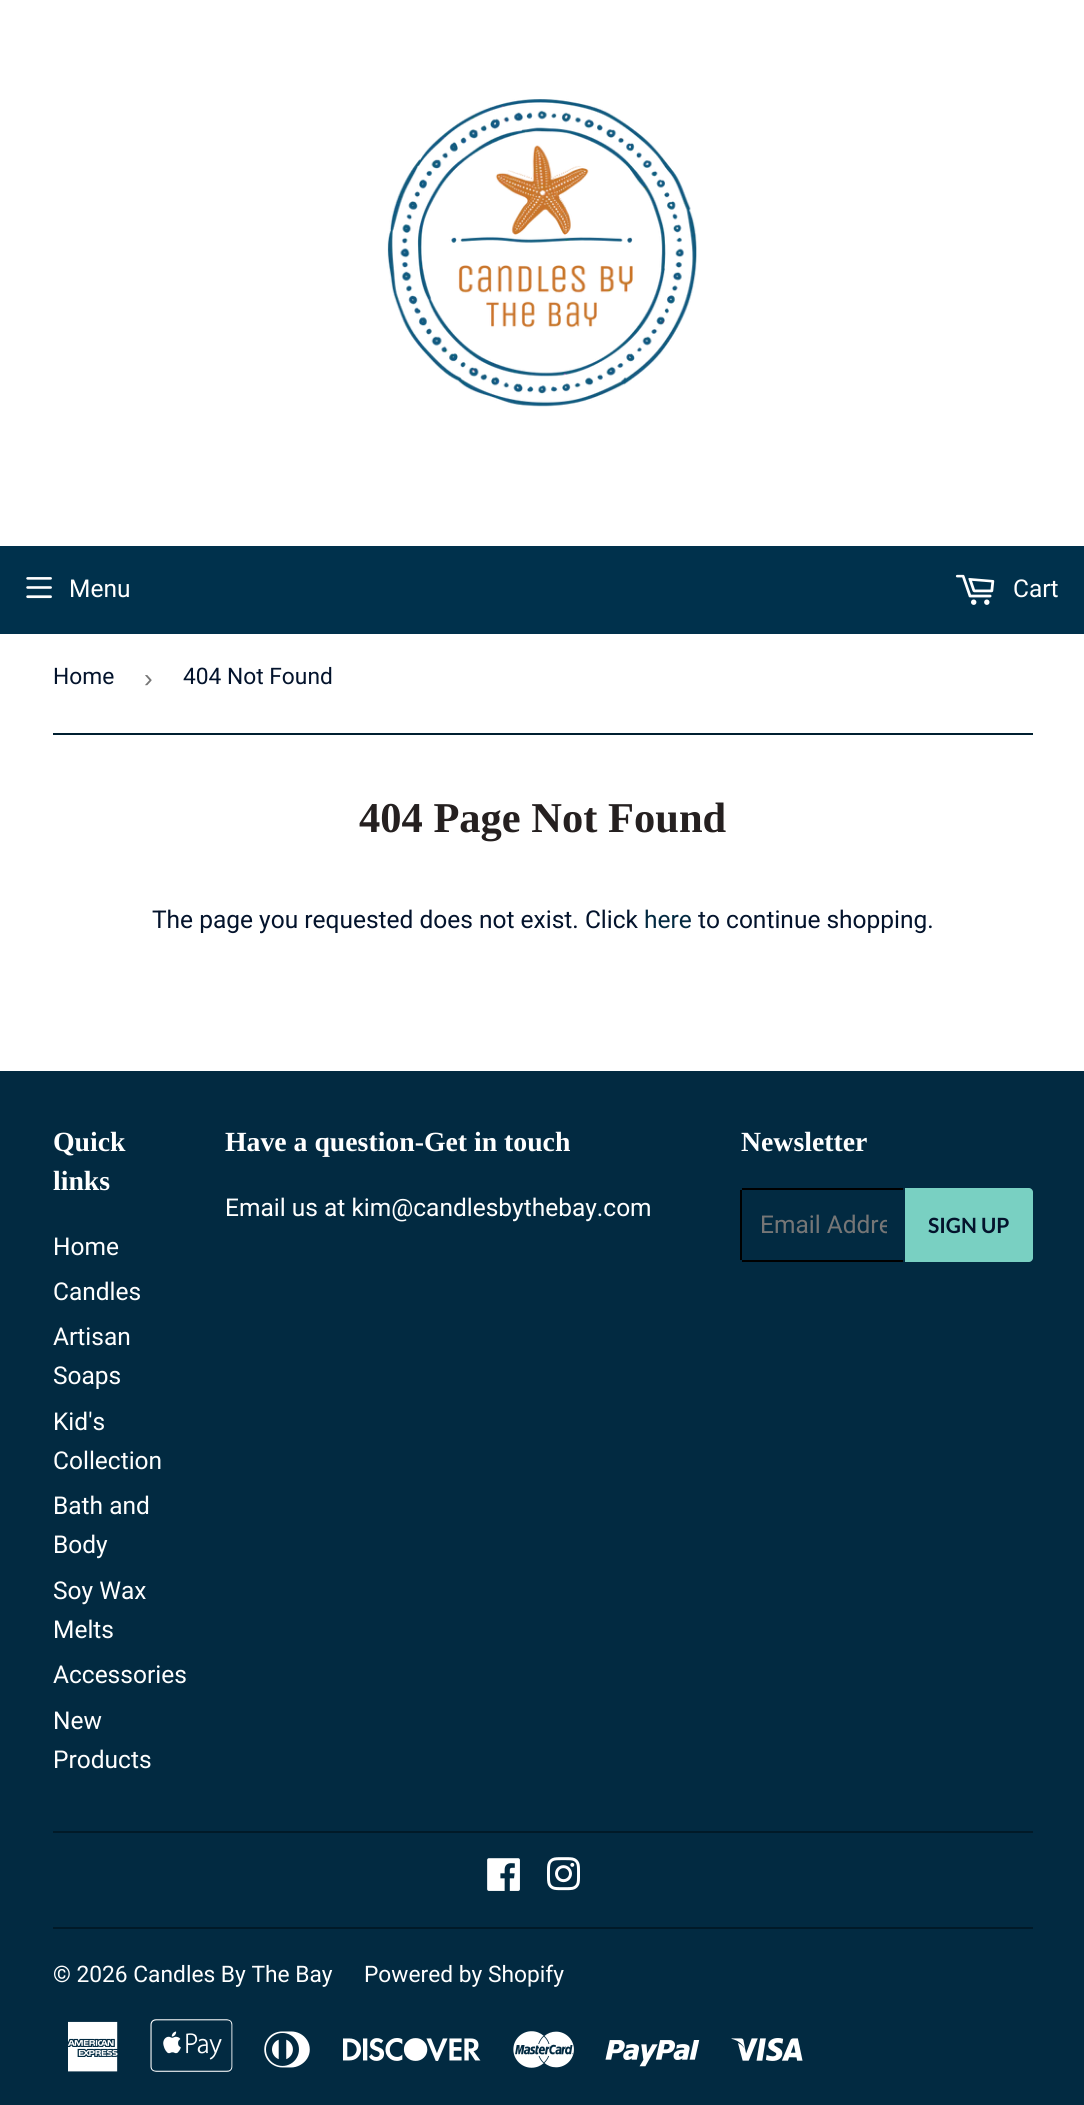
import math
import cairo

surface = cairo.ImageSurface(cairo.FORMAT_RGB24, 1084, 2105)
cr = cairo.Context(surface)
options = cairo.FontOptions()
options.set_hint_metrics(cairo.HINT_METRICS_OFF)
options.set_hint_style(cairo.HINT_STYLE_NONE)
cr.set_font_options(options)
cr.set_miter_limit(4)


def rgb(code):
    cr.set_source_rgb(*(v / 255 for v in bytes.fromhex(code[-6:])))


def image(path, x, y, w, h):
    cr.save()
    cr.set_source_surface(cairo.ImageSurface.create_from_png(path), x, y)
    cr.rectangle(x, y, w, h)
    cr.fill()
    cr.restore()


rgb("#ffffff")
cr.paint()
image("img/1.png", 387, 99, 310, 308)
rgb("#00314c")
cr.rectangle(0, 546, 1084, 88)
cr.fill()
image("img/2.png", 26, 577, 26, 22)
image("img/3.png", 955, 574, 40, 31)
for x, y, w, h, color in [
    (53, 733, 980, 2, "#001f30"),
    (0, 1071, 1084, 1034, "#022a41"),
    (742, 1188, 161, 2, "#000000"),
    (742, 1260, 161, 2, "#000000"),
    (740, 1190, 2, 70, "#000000"),
]:
    rgb(color)
    cr.rectangle(x, y, w, h)
    cr.fill()
rgb("#79d0c2")
cr.new_path()
cr.move_to(905, 1188)
cr.line_to(1029, 1188)
cr.curve_to(1031, 1188, 1033, 1190, 1033, 1192)
cr.line_to(1033, 1258)
cr.curve_to(1033, 1260, 1031, 1262, 1029, 1262)
cr.line_to(905, 1262)
cr.close_path()
cr.fill()
rgb("#011a28")
cr.rectangle(53, 1831, 980, 2)
cr.fill()
image("img/4.png", 487, 1858, 33, 33)
image("img/5.png", 547, 1857, 33, 34)
cr.rectangle(53, 1927, 980, 2)
cr.fill()
image("img/6.png", 68, 2021, 50, 51)
image("img/7.png", 150, 2019, 83, 53)
image("img/8.png", 264, 2031, 46, 37)
image("img/9.png", 343, 2038, 138, 23)
image("img/10.png", 513, 2031, 61, 37)
image("img/11.png", 605, 2040, 95, 27)
image("img/12.png", 731, 2038, 72, 23)
cr.select_font_face("Roboto")
cr.set_font_size(24.5)
rgb("#ffffff")
cr.move_to(69, 597)
cr.show_text("Menu")
cr.move_to(1013, 597)
cr.show_text("Cart")
cr.set_font_size(22.75)
rgb("#03132c")
cr.move_to(53, 684)
cr.show_text("Home")
cr.select_font_face("Liberation Sans")
cr.set_font_size(26)
rgb("#767676")
cr.move_to(144, 687)
cr.show_text("›")
cr.select_font_face("Roboto")
cr.set_font_size(22.75)
rgb("#03132c")
cr.move_to(183, 684)
cr.show_text("404 Not Found")
cr.select_font_face("Liberation Serif", cairo.FONT_SLANT_NORMAL, cairo.FONT_WEIGHT_BOLD)
cr.set_font_size(42.5)
rgb("#252020")
cr.move_to(359, 832)
cr.show_text("404 Page Not Found")
cr.select_font_face("Roboto")
cr.set_font_size(24.5)
rgb("#03132c")
cr.move_to(152, 928)
cr.show_text("The page you requested does not exist. Click")
rgb("#022a41")
cr.move_to(644, 928)
cr.show_text("here")
rgb("#03132c")
cr.move_to(698, 928)
cr.show_text("to continue shopping.")
cr.select_font_face("Liberation Serif", cairo.FONT_SLANT_NORMAL, cairo.FONT_WEIGHT_BOLD)
cr.set_font_size(27.75)
rgb("#ffffff")
cr.move_to(53, 1151)
cr.show_text("Quick")
cr.move_to(53, 1190)
cr.show_text("links")
cr.select_font_face("Roboto")
cr.set_font_size(24.5)
for x, y, s in [
    (53, 1255, "Home"),
    (53, 1300, "Candles"),
    (53, 1345, "Artisan"),
    (53, 1384, "Soaps"),
    (53, 1430, "Kid's"),
    (53, 1469, "Collection"),
    (53, 1514, "Bath and"),
    (53, 1553, "Body"),
    (53, 1599, "Soy Wax"),
    (53, 1638, "Melts"),
    (53, 1683, "Accessories"),
    (53, 1729, "New"),
    (53, 1768, "Products"),
]:
    cr.move_to(x, y)
    cr.show_text(s)
cr.select_font_face("Liberation Serif", cairo.FONT_SLANT_NORMAL, cairo.FONT_WEIGHT_BOLD)
cr.set_font_size(27.75)
cr.move_to(225, 1151)
cr.show_text("Have a question-Get in touch")
cr.select_font_face("Roboto")
cr.set_font_size(24.5)
cr.move_to(225, 1216)
cr.show_text("Email us at kim@candlesbythebay.com")
cr.select_font_face("Liberation Serif", cairo.FONT_SLANT_NORMAL, cairo.FONT_WEIGHT_BOLD)
cr.set_font_size(27.75)
cr.move_to(741, 1151)
cr.show_text("Newsletter")
cr.save()
cr.rectangle(760, 1211, 127, 28)
cr.clip()
cr.select_font_face("Roboto")
cr.set_font_size(24.5)
rgb("#767676")
cr.move_to(760, 1233)
cr.show_text("Email Addre")
cr.restore()
cr.select_font_face("Lato", cairo.FONT_SLANT_NORMAL, cairo.FONT_WEIGHT_BOLD)
cr.set_font_size(21)
rgb("#03132c")
cr.move_to(928, 1233)
cr.show_text("SIGN UP")
cr.select_font_face("Roboto")
cr.set_font_size(22.75)
rgb("#ffffff")
cr.move_to(53, 1982)
cr.show_text("© 2026 Candles By The Bay")
cr.move_to(364, 1982)
cr.show_text("Powered by Shopify")
surface.write_to_png("page.png")
